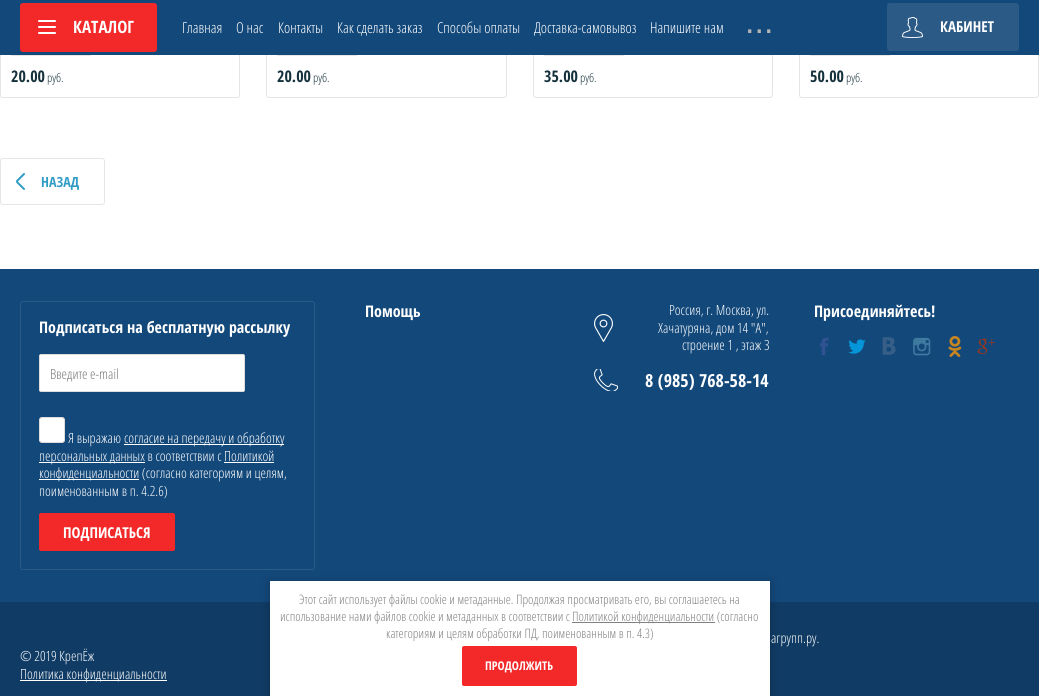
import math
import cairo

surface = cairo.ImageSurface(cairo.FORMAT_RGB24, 1039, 696)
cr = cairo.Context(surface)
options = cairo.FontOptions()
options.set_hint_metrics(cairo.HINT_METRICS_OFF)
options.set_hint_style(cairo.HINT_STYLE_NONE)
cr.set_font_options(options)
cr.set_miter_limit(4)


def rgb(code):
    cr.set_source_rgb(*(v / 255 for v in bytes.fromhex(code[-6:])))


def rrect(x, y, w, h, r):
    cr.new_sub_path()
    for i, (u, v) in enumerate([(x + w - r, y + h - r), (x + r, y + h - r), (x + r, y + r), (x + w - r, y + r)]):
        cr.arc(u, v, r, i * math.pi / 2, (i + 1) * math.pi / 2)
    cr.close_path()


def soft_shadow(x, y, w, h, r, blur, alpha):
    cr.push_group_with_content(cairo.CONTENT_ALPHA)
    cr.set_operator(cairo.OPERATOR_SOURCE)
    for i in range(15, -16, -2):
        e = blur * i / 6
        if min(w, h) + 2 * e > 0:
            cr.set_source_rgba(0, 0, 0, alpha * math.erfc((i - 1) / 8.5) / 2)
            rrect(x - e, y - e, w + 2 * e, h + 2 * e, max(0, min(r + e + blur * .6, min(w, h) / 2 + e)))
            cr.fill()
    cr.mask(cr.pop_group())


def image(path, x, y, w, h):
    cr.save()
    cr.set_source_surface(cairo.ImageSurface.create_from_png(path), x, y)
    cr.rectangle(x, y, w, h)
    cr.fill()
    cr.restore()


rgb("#ffffff")
cr.paint()
rrect(0.5, -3.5, 239, 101, 2.5)
rgb("#e5e5e5")
cr.set_line_width(1)
cr.stroke()
rrect(266.5, -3.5, 240, 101, 2.5)
cr.stroke()
rrect(533.5, -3.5, 239, 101, 2.5)
cr.stroke()
rrect(799.5, -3.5, 239, 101, 2.5)
cr.stroke()
rgb("#13487a")
cr.rectangle(0, 0, 1039, 55)
cr.fill()
rgb("#f32929")
rrect(20, 3, 137, 49, 3)
cr.fill()
image("img/1.png", 38, 20, 18, 14)
rgb("#2b5a87")
rrect(887, 3, 132, 48, 3)
cr.fill()
image("img/2.png", 902, 17, 21, 21)
for x, y, w, h, color in [
    (11, 55, 80, 1, "#e6e6e6"),
    (277, 55, 80, 1, "#e6e6e6"),
    (544, 55, 80, 1, "#e6e6e6"),
    (810, 55, 80, 1, "#e6e6e6"),
]:
    rgb(color)
    cr.rectangle(x, y, w, h)
    cr.fill()
image("img/3.png", 16, 173, 9, 17)
rrect(0.5, 158.5, 104, 46, 2.5)
cr.stroke()
rgb("#13487a")
cr.rectangle(0, 269, 1039, 333)
cr.fill()
rrect(20.5, 301.5, 294, 268, 2.5)
rgb("#2b5a87")
cr.stroke()
rgb("#ffffff")
rrect(39.5, 354.5, 205, 37, 1.5)
cr.fill_preserve()
rgb("#dddddd")
cr.stroke()
rgb("#ffffff")
rrect(39.5, 417.5, 25, 25, 2.5)
cr.fill_preserve()
rgb("#dddddd")
cr.stroke()
for x, y, w, h, color in [
    (124, 444, 160, 1, "#ffffff"),
    (39, 462, 106, 1, "#ffffff"),
    (224, 462, 50, 1, "#ffffff"),
    (39, 479, 100, 1, "#ffffff"),
]:
    rgb(color)
    cr.rectangle(x, y, w, h)
    cr.fill()
rgb("#f32929")
rrect(39, 513, 136, 38, 2)
cr.fill()
image("img/4.png", 594, 314, 19, 28)
image("img/5.png", 594, 369, 24, 22)
image("img/6.png", 820, 337, 9, 19)
image("img/7.png", 848, 339, 18, 15)
image("img/8.png", 882, 337, 14, 18)
image("img/9.png", 913, 337, 18, 19)
image("img/10.png", 948, 336, 14, 21)
image("img/11.png", 977, 338, 18, 17)
rgb("#103b64")
cr.rectangle(0, 602, 1039, 94)
cr.fill()
rgb("#ffffff")
cr.rectangle(20, 680, 147, 1)
cr.fill()
rgb("#000000")
soft_shadow(270, 582, 500, 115, 0, 5, 0.23)
rgb("#ffffff")
cr.rectangle(270, 581, 500, 115)
cr.fill()
rgb("#808080")
cr.rectangle(572, 622, 143, 1)
cr.fill()
rgb("#f32929")
rrect(462, 646, 115, 40, 2)
cr.fill()
cr.select_font_face("Open Sans Condensed", cairo.FONT_SLANT_NORMAL, cairo.FONT_WEIGHT_BOLD)
cr.set_font_size(17)
rgb("#ffffff")
cr.move_to(73, 33)
cr.show_text("КАТАЛОГ")
cr.select_font_face("Open Sans Light")
cr.set_font_size(15)
for x, y, s in [
    (182, 33, "Главная"),
    (236, 33, "О нас"),
    (278, 33, "Контакты"),
    (337, 33, "Как сделать заказ"),
    (437, 33, "Способы оплаты"),
    (534, 33, "Доставка-самовывоз"),
    (650, 33, "Напишите нам"),
]:
    cr.move_to(x, y)
    cr.show_text(s)
cr.select_font_face("Liberation Sans")
cr.set_font_size(34)
rgb("#b5b5b5")
cr.move_to(745, 33)
cr.show_text("...")
cr.select_font_face("Open Sans Condensed", cairo.FONT_SLANT_NORMAL, cairo.FONT_WEIGHT_BOLD)
cr.set_font_size(15)
rgb("#ffffff")
cr.move_to(940, 32)
cr.show_text("КАБИНЕТ")
cr.set_font_size(16)
rgb("#15313c")
cr.move_to(11, 82)
cr.show_text("20.00")
cr.select_font_face("Open Sans Light")
cr.set_font_size(12)
cr.move_to(47, 82)
cr.show_text("руб.")
cr.select_font_face("Open Sans Condensed", cairo.FONT_SLANT_NORMAL, cairo.FONT_WEIGHT_BOLD)
cr.set_font_size(16)
cr.move_to(277, 82)
cr.show_text("20.00")
cr.select_font_face("Open Sans Light")
cr.set_font_size(12)
cr.move_to(313, 82)
cr.show_text("руб.")
cr.select_font_face("Open Sans Condensed", cairo.FONT_SLANT_NORMAL, cairo.FONT_WEIGHT_BOLD)
cr.set_font_size(16)
cr.move_to(544, 82)
cr.show_text("35.00")
cr.select_font_face("Open Sans Light")
cr.set_font_size(12)
cr.move_to(580, 82)
cr.show_text("руб.")
cr.select_font_face("Open Sans Condensed", cairo.FONT_SLANT_NORMAL, cairo.FONT_WEIGHT_BOLD)
cr.set_font_size(16)
cr.move_to(810, 82)
cr.show_text("50.00")
cr.select_font_face("Open Sans Light")
cr.set_font_size(12)
cr.move_to(846, 82)
cr.show_text("руб.")
cr.select_font_face("Open Sans Condensed", cairo.FONT_SLANT_NORMAL, cairo.FONT_WEIGHT_BOLD)
cr.set_font_size(14)
rgb("#319cc6")
cr.move_to(41, 187)
cr.show_text("НАЗАД")
cr.set_font_size(16)
rgb("#ffffff")
cr.move_to(39, 333)
cr.show_text("Подписаться на бесплатную рассылку")
cr.select_font_face("Open Sans Light")
cr.set_font_size(14)
rgb("#757575")
cr.move_to(50, 379)
cr.show_text("Введите e-mail")
rgb("#ffffff")
for x, y, s in [
    (68, 443, "Я выражаю"),
    (124, 443, "согласие на передачу и обработку"),
    (39, 461, "персональных данных в соответствии с Политикой"),
    (39, 478, "конфиденциальности (согласно категориям и целям,"),
    (39, 496, "поименованным в п. 4.2.6)"),
]:
    cr.move_to(x, y)
    cr.show_text(s)
cr.select_font_face("Open Sans Condensed", cairo.FONT_SLANT_NORMAL, cairo.FONT_WEIGHT_BOLD)
cr.set_font_size(15)
cr.move_to(63, 538)
cr.show_text("ПОДПИСАТЬСЯ")
cr.set_font_size(16)
cr.move_to(365, 317)
cr.show_text("Помощь")
cr.select_font_face("Open Sans Light")
cr.set_font_size(14)
for x, y, s in [
    (669, 315, "Россия, г. Москва, ул."),
    (658, 333, "Хачатуряна, дом 14 \"А\","),
    (682, 350, "строение 1 , этаж 3"),
]:
    cr.move_to(x, y)
    cr.show_text(s)
cr.select_font_face("Open Sans Condensed", cairo.FONT_SLANT_NORMAL, cairo.FONT_WEIGHT_BOLD)
cr.set_font_size(18)
cr.move_to(645, 387)
cr.show_text("8 (985) 768-58-14")
cr.set_font_size(16)
cr.move_to(814, 317)
cr.show_text("Присоединяйтесь!")
cr.select_font_face("Open Sans Light")
cr.set_font_size(14)
for x, y, s in [
    (771, 643, "агрупп.ру."),
    (20, 661, "© 2019 КрепЁж"),
    (20, 679, "Политика конфиденциальности"),
]:
    cr.move_to(x, y)
    cr.show_text(s)
cr.set_font_size(13)
rgb("#808080")
for x, y, s in [
    (299, 604, "Этот сайт использует файлы cookie и метаданные. Продолжая просматривать его, вы соглашаетесь на"),
    (280, 621, "использование нами файлов cookie и метаданных в соответствии с"),
    (572, 621, "Политикой конфиденциальности (согласно"),
    (386, 638, "категориям и целям обработки ПД, поименованным в п. 4.3)"),
]:
    cr.move_to(x, y)
    cr.show_text(s)
cr.select_font_face("Open Sans Condensed", cairo.FONT_SLANT_NORMAL, cairo.FONT_WEIGHT_BOLD)
cr.set_font_size(12)
rgb("#ffffff")
cr.move_to(485, 670)
cr.show_text("ПРОДОЛЖИТЬ")
surface.write_to_png("page.png")
